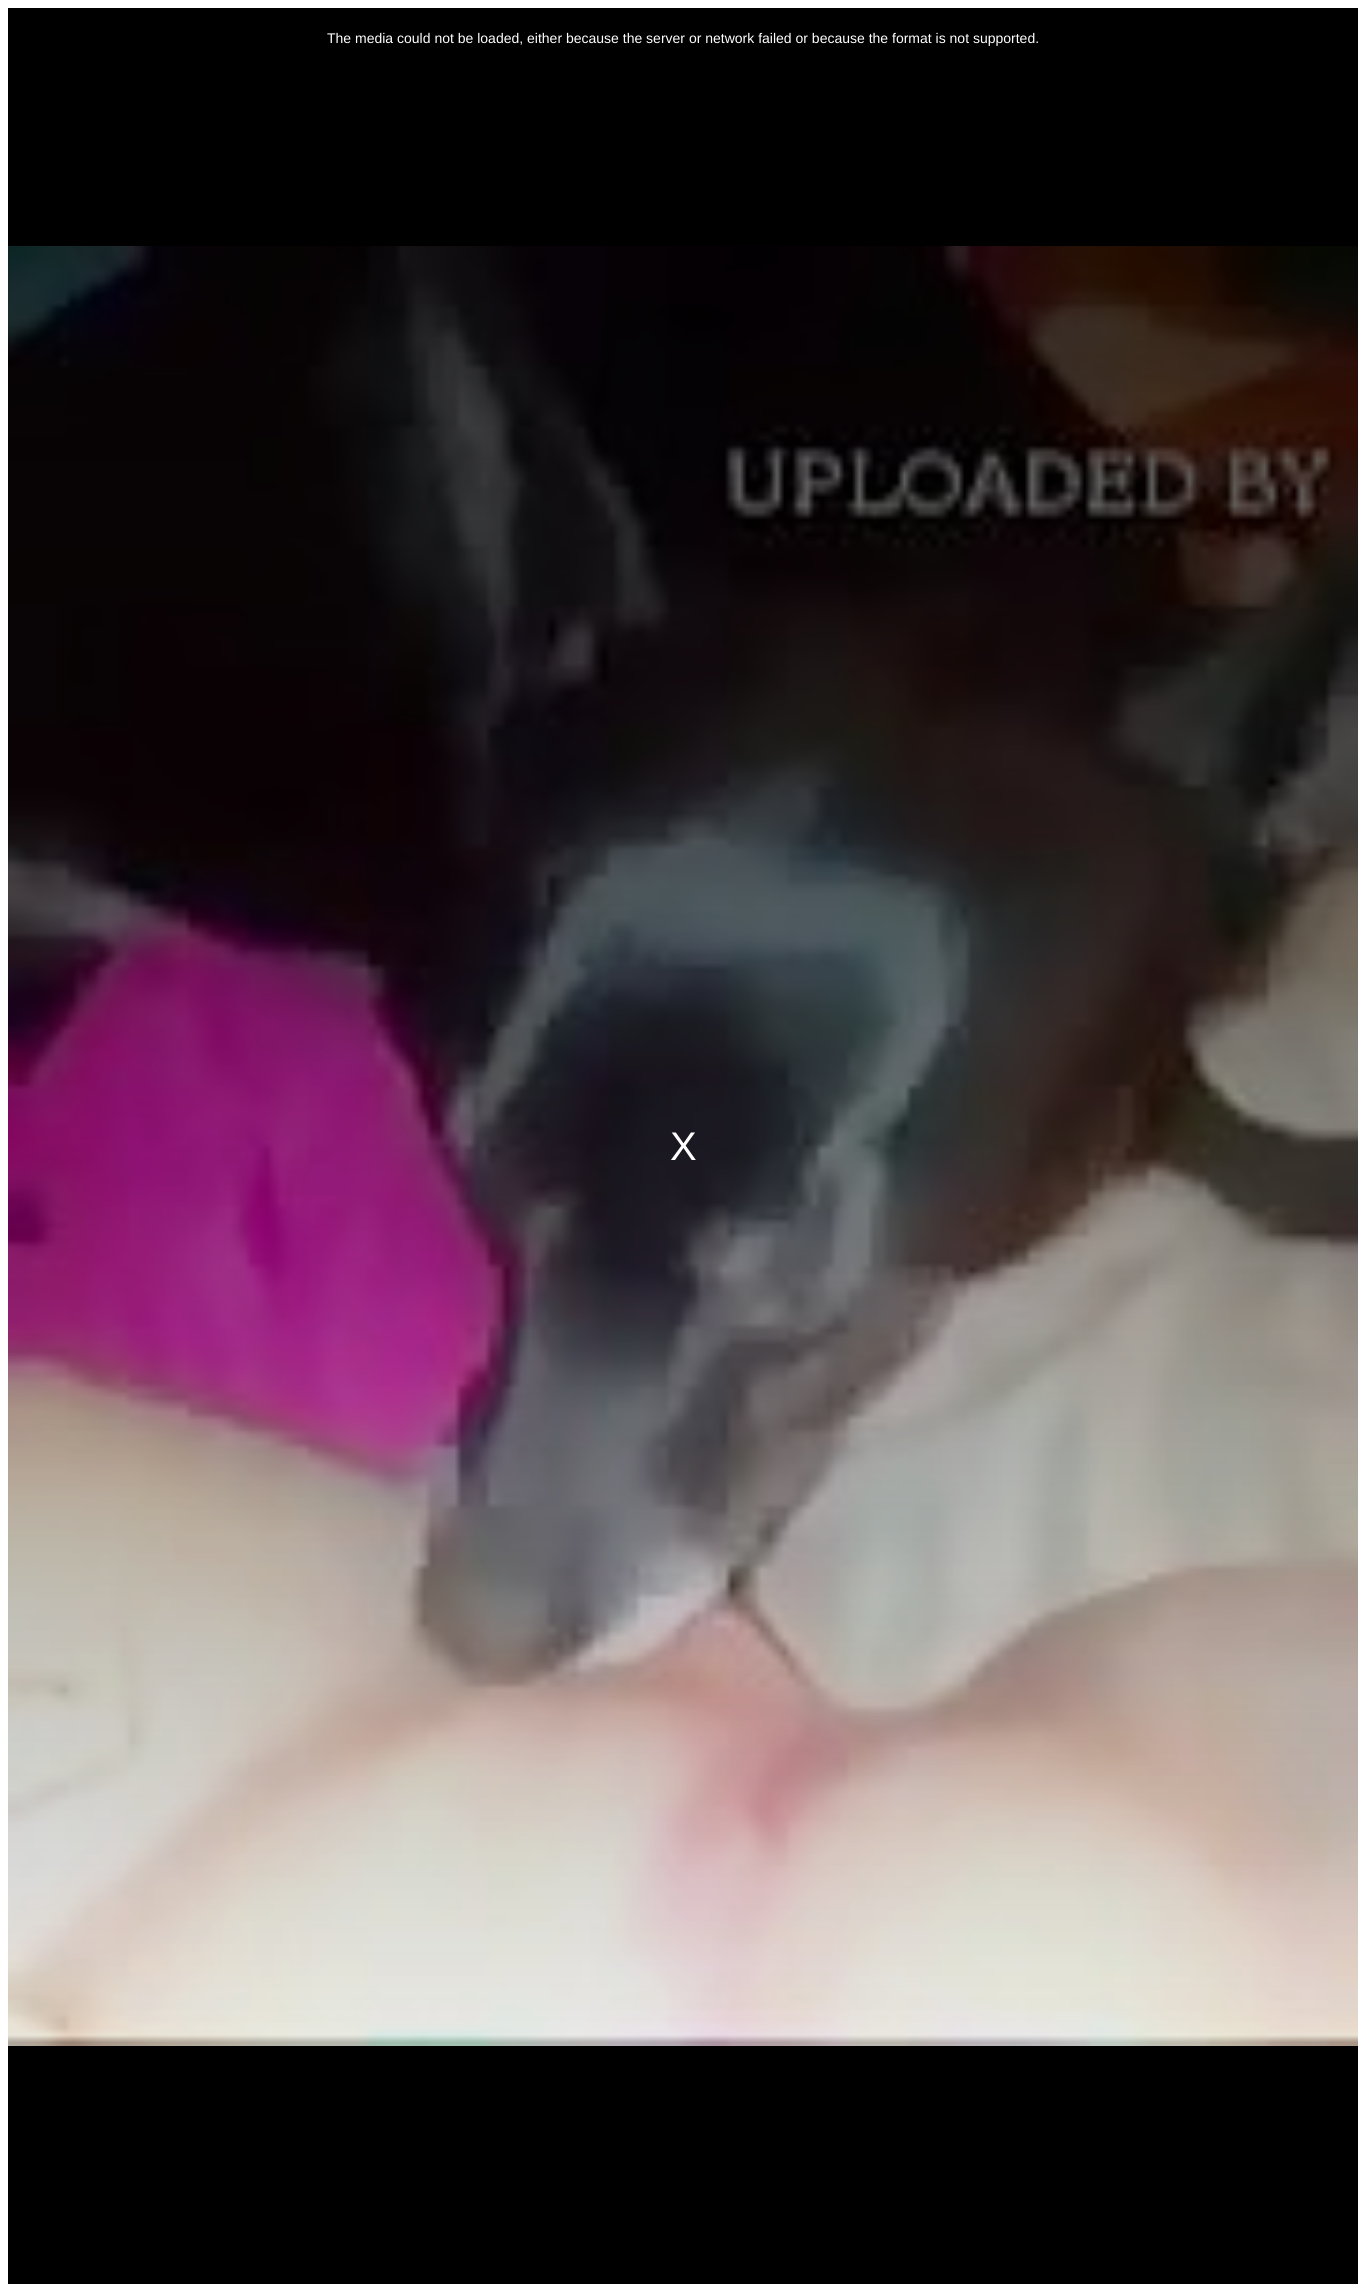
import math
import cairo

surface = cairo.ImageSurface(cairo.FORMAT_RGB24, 1366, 2292)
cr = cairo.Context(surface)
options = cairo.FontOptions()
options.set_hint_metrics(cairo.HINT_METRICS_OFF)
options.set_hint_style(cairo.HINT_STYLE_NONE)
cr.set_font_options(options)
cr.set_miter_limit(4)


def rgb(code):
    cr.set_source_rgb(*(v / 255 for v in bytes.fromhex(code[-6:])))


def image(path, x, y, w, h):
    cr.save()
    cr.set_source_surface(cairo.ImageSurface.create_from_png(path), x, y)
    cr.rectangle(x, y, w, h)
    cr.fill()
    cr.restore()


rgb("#ffffff")
cr.paint()
rgb("#000000")
cr.rectangle(8, 8, 1350, 2276)
cr.fill()
image("img/1.png", 8, 246, 1350, 1800)
gradient = cairo.LinearGradient(683, 8, 683, 2284)
gradient.add_color_stop_rgba(0, 0, 0, 0, 0.8)
gradient.add_color_stop_rgba(1, 0, 0, 0, 0)
cr.set_source(gradient)
cr.rectangle(8, 246, 1350, 1800)
cr.fill()
cr.select_font_face("Liberation Sans")
cr.set_font_size(14)
rgb("#ffffff")
cr.move_to(327, 43)
cr.show_text("The media could not be loaded, either because the server or network failed or because the format is not supported.")
cr.set_font_size(40)
cr.move_to(670, 1160)
cr.show_text("X")
surface.write_to_png("page.png")
